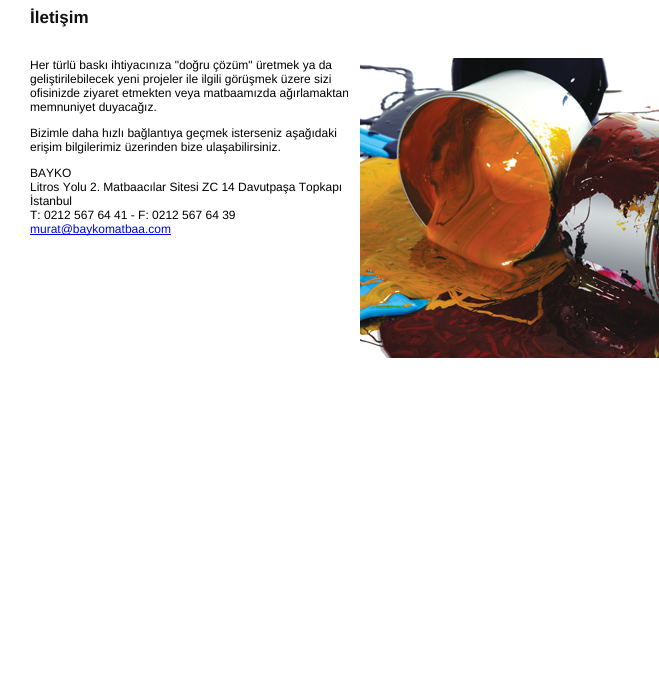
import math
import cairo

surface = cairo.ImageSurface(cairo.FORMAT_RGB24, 659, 682)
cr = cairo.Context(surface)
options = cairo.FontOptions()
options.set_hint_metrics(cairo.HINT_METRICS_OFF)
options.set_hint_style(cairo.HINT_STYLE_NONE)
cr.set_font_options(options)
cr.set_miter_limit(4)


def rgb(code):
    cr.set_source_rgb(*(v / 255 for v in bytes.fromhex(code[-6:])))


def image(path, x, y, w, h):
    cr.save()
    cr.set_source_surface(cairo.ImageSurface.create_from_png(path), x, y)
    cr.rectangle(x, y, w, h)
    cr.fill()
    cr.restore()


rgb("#ffffff")
cr.paint()
image("img/1.png", 360, 58, 299, 300)
rgb("#0000ee")
cr.rectangle(30, 234, 141, 1)
cr.fill()
cr.select_font_face("Liberation Sans", cairo.FONT_SLANT_NORMAL, cairo.FONT_WEIGHT_BOLD)
cr.set_font_size(17)
rgb("#110f10")
cr.move_to(30, 23)
cr.show_text("İletişim")
cr.select_font_face("Liberation Sans")
cr.set_font_size(12)
rgb("#000000")
for x, y, s in [
    (30, 69, "Her türlü baskı ihtiyacınıza \"doğru çözüm\" üretmek ya da"),
    (30, 83, "geliştirilebilecek yeni projeler ile ilgili görüşmek üzere sizi"),
    (30, 97, "ofisinizde ziyaret etmekten veya matbaamızda ağırlamaktan"),
    (30, 111, "memnuniyet duyacağız."),
    (30, 137, "Bizimle daha hızlı bağlantıya geçmek isterseniz aşağıdaki"),
    (30, 151, "erişim bilgilerimiz üzerinden bize ulaşabilirsiniz."),
    (30, 177, "BAYKO"),
    (30, 191, "Litros Yolu 2. Matbaacılar Sitesi ZC 14 Davutpaşa Topkapı"),
    (30, 205, "İstanbul"),
    (30, 219, "T: 0212 567 64 41 - F: 0212 567 64 39"),
]:
    cr.move_to(x, y)
    cr.show_text(s)
rgb("#0000ee")
cr.move_to(30, 233)
cr.show_text("murat@baykomatbaa.com")
surface.write_to_png("page.png")
